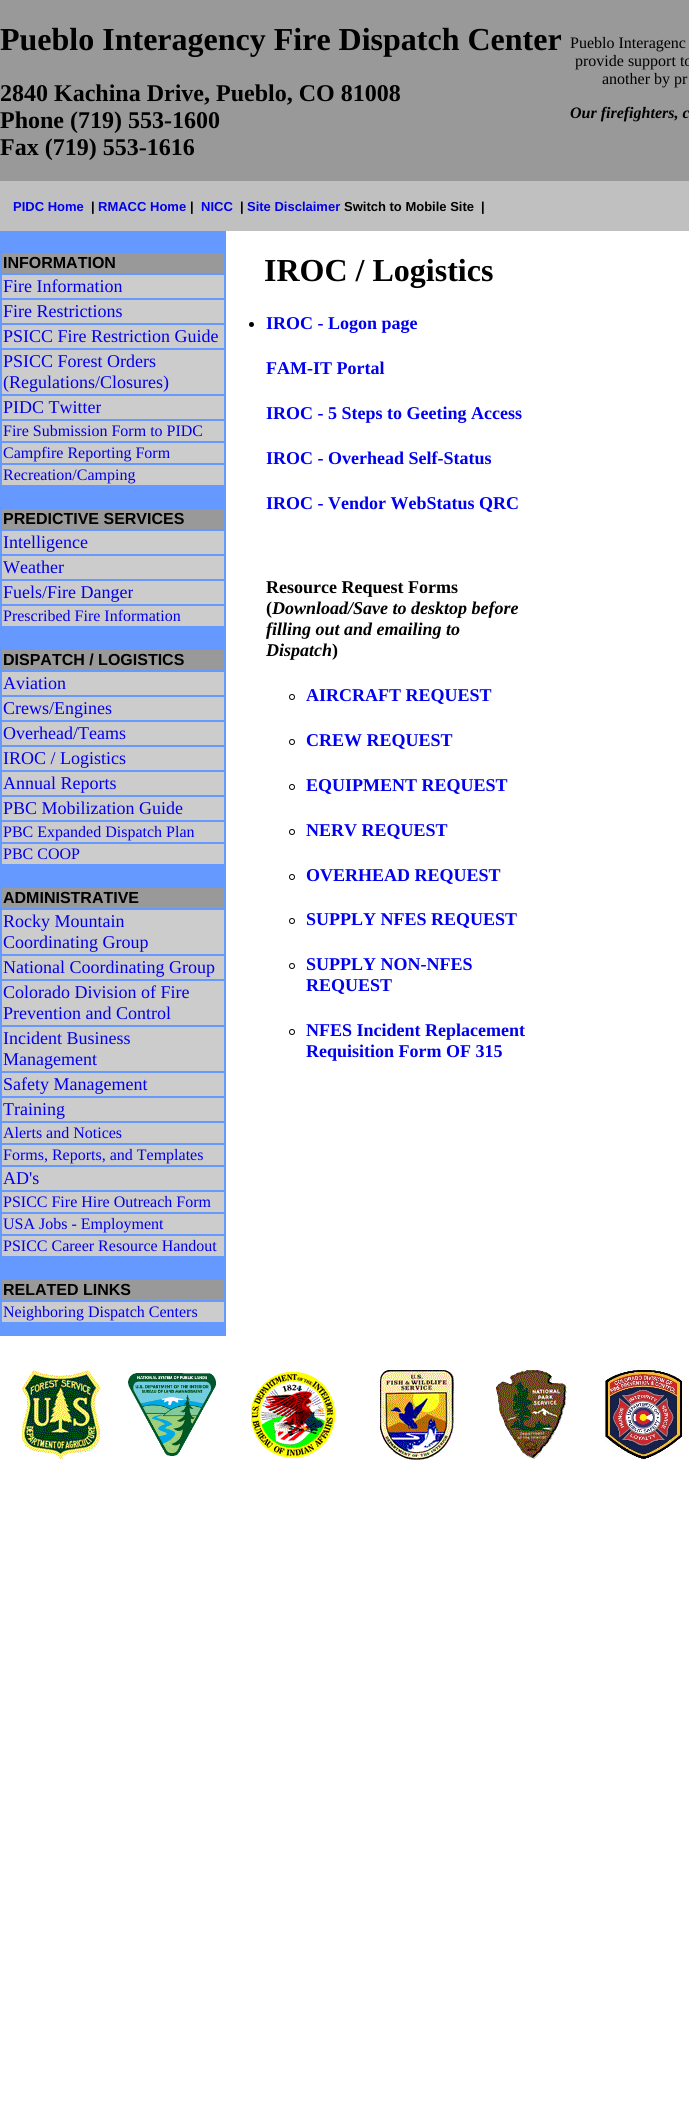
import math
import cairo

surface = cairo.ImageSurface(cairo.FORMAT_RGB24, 689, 2115)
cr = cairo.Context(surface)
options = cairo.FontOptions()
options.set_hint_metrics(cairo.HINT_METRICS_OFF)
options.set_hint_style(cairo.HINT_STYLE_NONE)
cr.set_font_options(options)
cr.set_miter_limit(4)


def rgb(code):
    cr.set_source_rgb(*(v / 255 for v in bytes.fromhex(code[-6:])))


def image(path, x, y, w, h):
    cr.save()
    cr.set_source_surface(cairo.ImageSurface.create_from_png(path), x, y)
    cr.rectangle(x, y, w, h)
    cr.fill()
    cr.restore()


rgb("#ffffff")
cr.paint()
for x, y, w, h, color in [
    (0, 0, 689, 181, "#999999"),
    (0, 181, 689, 50, "#c0c0c0"),
    (0, 231, 226, 1105, "#6699ff"),
    (2, 253, 222, 20, "#999999"),
    (2, 275, 222, 23, "#cccccc"),
    (2, 300, 222, 23, "#cccccc"),
    (2, 325, 222, 23, "#cccccc"),
    (2, 350, 222, 44, "#cccccc"),
    (2, 396, 222, 23, "#cccccc"),
    (2, 421, 222, 20, "#cccccc"),
    (2, 443, 222, 20, "#cccccc"),
    (2, 465, 222, 20, "#cccccc"),
    (2, 509, 222, 20, "#999999"),
    (2, 531, 222, 23, "#cccccc"),
    (2, 556, 222, 23, "#cccccc"),
    (2, 581, 222, 23, "#cccccc"),
    (2, 606, 222, 20, "#cccccc"),
    (2, 650, 222, 20, "#999999"),
    (2, 672, 222, 23, "#cccccc"),
    (2, 697, 222, 23, "#cccccc"),
    (2, 722, 222, 23, "#cccccc"),
    (2, 747, 222, 23, "#cccccc"),
    (2, 772, 222, 23, "#cccccc"),
    (2, 797, 222, 23, "#cccccc"),
    (2, 822, 222, 20, "#cccccc"),
    (2, 844, 222, 20, "#cccccc"),
    (2, 888, 222, 20, "#999999"),
    (2, 910, 222, 44, "#cccccc"),
    (2, 956, 222, 23, "#cccccc"),
    (2, 981, 222, 44, "#cccccc"),
    (2, 1027, 222, 44, "#cccccc"),
    (2, 1073, 222, 23, "#cccccc"),
    (2, 1098, 222, 23, "#cccccc"),
    (2, 1123, 222, 20, "#cccccc"),
    (2, 1145, 222, 20, "#cccccc"),
    (2, 1167, 222, 23, "#cccccc"),
    (2, 1192, 222, 20, "#cccccc"),
    (2, 1214, 222, 20, "#cccccc"),
    (2, 1236, 222, 20, "#cccccc"),
    (2, 1280, 222, 20, "#999999"),
    (2, 1302, 222, 20, "#cccccc"),
]:
    rgb(color)
    cr.rectangle(x, y, w, h)
    cr.fill()
rgb("#000000")
cr.arc(251.5, 324.5, 2.5, 0, 2 * math.pi)
cr.fill()
cr.arc(292, 697, 2.5, 0, 2 * math.pi)
cr.set_line_width(1)
cr.stroke()
cr.arc(292, 742, 2.5, 0, 2 * math.pi)
cr.stroke()
cr.arc(292, 787, 2.5, 0, 2 * math.pi)
cr.stroke()
cr.arc(292, 832, 2.5, 0, 2 * math.pi)
cr.stroke()
cr.arc(292, 877, 2.5, 0, 2 * math.pi)
cr.stroke()
cr.arc(292, 921, 2.5, 0, 2 * math.pi)
cr.stroke()
cr.arc(292, 966, 2.5, 0, 2 * math.pi)
cr.stroke()
cr.arc(292, 1032, 2.5, 0, 2 * math.pi)
cr.stroke()
image("img/1.png", 22, 1370, 79, 89)
image("img/2.png", 128, 1373, 88, 83)
image("img/3.png", 251, 1372, 84, 86)
image("img/4.png", 380, 1370, 74, 90)
image("img/5.png", 496, 1370, 71, 89)
image("img/6.png", 603, 1368, 81, 92)
cr.select_font_face("Liberation Serif", cairo.FONT_SLANT_NORMAL, cairo.FONT_WEIGHT_BOLD)
cr.set_font_size(32)
cr.move_to(0, 50)
cr.show_text("Pueblo Interagency Fire Dispatch Center")
cr.set_font_size(24)
for x, y, s in [
    (0, 101, "2840 Kachina Drive, Pueblo, CO 81008"),
    (0, 128, "Phone (719) 553-1600"),
    (0, 155, "Fax (719) 553-1616"),
]:
    cr.move_to(x, y)
    cr.show_text(s)
cr.select_font_face("Liberation Serif")
cr.set_font_size(16)
for x, y, s in [
    (570, 48, "Pueblo Interagenc"),
    (575, 66, "provide support to"),
    (602, 84, "another by pr"),
]:
    cr.move_to(x, y)
    cr.show_text(s)
cr.select_font_face("Liberation Serif", cairo.FONT_SLANT_ITALIC, cairo.FONT_WEIGHT_BOLD)
cr.move_to(570, 118)
cr.show_text("Our firefighters, c")
cr.select_font_face("Liberation Sans", cairo.FONT_SLANT_NORMAL, cairo.FONT_WEIGHT_BOLD)
cr.set_font_size(13)
rgb("#0000ee")
cr.move_to(13, 211)
cr.show_text("PIDC Home")
rgb("#000000")
cr.move_to(91, 211)
cr.show_text("|")
rgb("#0000ee")
cr.move_to(98, 211)
cr.show_text("RMACC Home")
rgb("#000000")
cr.move_to(190, 211)
cr.show_text("|")
rgb("#0000ee")
cr.move_to(201, 211)
cr.show_text("NICC")
rgb("#000000")
cr.move_to(240, 211)
cr.show_text("|")
rgb("#0000ee")
cr.move_to(247, 211)
cr.show_text("Site Disclaimer")
rgb("#000000")
cr.move_to(344, 211)
cr.show_text("Switch to Mobile Site")
cr.move_to(481, 211)
cr.show_text("|")
cr.set_font_size(16)
cr.move_to(3, 268)
cr.show_text("INFORMATION")
cr.select_font_face("Liberation Serif")
cr.set_font_size(18)
rgb("#0000ee")
for x, y, s in [
    (3, 292, "Fire Information"),
    (3, 317, "Fire Restrictions"),
    (3, 342, "PSICC Fire Restriction Guide"),
    (3, 367, "PSICC Forest Orders"),
    (3, 388, "(Regulations/Closures)"),
    (3, 413, "PIDC Twitter"),
]:
    cr.move_to(x, y)
    cr.show_text(s)
cr.set_font_size(16)
for x, y, s in [
    (3, 436, "Fire Submission Form to PIDC"),
    (3, 458, "Campfire Reporting Form"),
    (3, 480, "Recreation/Camping"),
]:
    cr.move_to(x, y)
    cr.show_text(s)
cr.select_font_face("Liberation Sans", cairo.FONT_SLANT_NORMAL, cairo.FONT_WEIGHT_BOLD)
rgb("#000000")
cr.move_to(3, 524)
cr.show_text("PREDICTIVE SERVICES")
cr.select_font_face("Liberation Serif")
cr.set_font_size(18)
rgb("#0000ee")
for x, y, s in [
    (3, 548, "Intelligence"),
    (3, 573, "Weather"),
    (3, 598, "Fuels/Fire Danger"),
]:
    cr.move_to(x, y)
    cr.show_text(s)
cr.set_font_size(16)
cr.move_to(3, 621)
cr.show_text("Prescribed Fire Information")
cr.select_font_face("Liberation Sans", cairo.FONT_SLANT_NORMAL, cairo.FONT_WEIGHT_BOLD)
rgb("#000000")
cr.move_to(3, 665)
cr.show_text("DISPATCH / LOGISTICS")
cr.select_font_face("Liberation Serif")
cr.set_font_size(18)
rgb("#0000ee")
for x, y, s in [
    (3, 689, "Aviation"),
    (3, 714, "Crews/Engines"),
    (3, 739, "Overhead/Teams"),
    (3, 764, "IROC / Logistics"),
    (3, 789, "Annual Reports"),
    (3, 814, "PBC Mobilization Guide"),
]:
    cr.move_to(x, y)
    cr.show_text(s)
cr.set_font_size(16)
cr.move_to(3, 837)
cr.show_text("PBC Expanded Dispatch Plan")
cr.move_to(3, 859)
cr.show_text("PBC COOP")
cr.select_font_face("Liberation Sans", cairo.FONT_SLANT_NORMAL, cairo.FONT_WEIGHT_BOLD)
rgb("#000000")
cr.move_to(3, 903)
cr.show_text("ADMINISTRATIVE")
cr.select_font_face("Liberation Serif")
cr.set_font_size(18)
rgb("#0000ee")
for x, y, s in [
    (3, 927, "Rocky Mountain"),
    (3, 948, "Coordinating Group"),
    (3, 973, "National Coordinating Group"),
    (3, 998, "Colorado Division of Fire"),
    (3, 1019, "Prevention and Control"),
    (3, 1044, "Incident Business"),
    (3, 1065, "Management"),
    (3, 1090, "Safety Management"),
    (3, 1115, "Training"),
]:
    cr.move_to(x, y)
    cr.show_text(s)
cr.set_font_size(16)
cr.move_to(3, 1138)
cr.show_text("Alerts and Notices")
cr.move_to(3, 1160)
cr.show_text("Forms, Reports, and Templates")
cr.set_font_size(18)
cr.move_to(3, 1184)
cr.show_text("AD's")
cr.set_font_size(16)
for x, y, s in [
    (3, 1207, "PSICC Fire Hire Outreach Form"),
    (3, 1229, "USA Jobs - Employment"),
    (3, 1251, "PSICC Career Resource Handout"),
]:
    cr.move_to(x, y)
    cr.show_text(s)
cr.select_font_face("Liberation Sans", cairo.FONT_SLANT_NORMAL, cairo.FONT_WEIGHT_BOLD)
rgb("#000000")
cr.move_to(3, 1295)
cr.show_text("RELATED LINKS")
cr.select_font_face("Liberation Serif")
rgb("#0000ee")
cr.move_to(3, 1317)
cr.show_text("Neighboring Dispatch Centers")
cr.select_font_face("Liberation Serif", cairo.FONT_SLANT_NORMAL, cairo.FONT_WEIGHT_BOLD)
cr.set_font_size(32)
rgb("#000000")
cr.move_to(264, 281)
cr.show_text("IROC / Logistics")
cr.set_font_size(18)
rgb("#0000ee")
for x, y, s in [
    (266, 329, "IROC - Logon page"),
    (266, 374, "FAM-IT Portal"),
    (266, 419, "IROC - 5 Steps to Geeting Access"),
    (266, 464, "IROC - Overhead Self-Status"),
    (266, 509, "IROC - Vendor WebStatus QRC"),
]:
    cr.move_to(x, y)
    cr.show_text(s)
rgb("#000000")
cr.move_to(266, 593)
cr.show_text("Resource Request Forms")
cr.move_to(266, 614)
cr.show_text("(")
cr.select_font_face("Liberation Serif", cairo.FONT_SLANT_ITALIC, cairo.FONT_WEIGHT_BOLD)
for x, y, s in [
    (272, 614, "Download/Save to desktop before"),
    (266, 635, "filling out and emailing to"),
    (266, 656, "Dispatch"),
]:
    cr.move_to(x, y)
    cr.show_text(s)
cr.select_font_face("Liberation Serif", cairo.FONT_SLANT_NORMAL, cairo.FONT_WEIGHT_BOLD)
cr.move_to(332, 656)
cr.show_text(")")
rgb("#0000ee")
for x, y, s in [
    (306, 701, "AIRCRAFT REQUEST"),
    (306, 746, "CREW REQUEST"),
    (306, 791, "EQUIPMENT REQUEST"),
    (306, 836, "NERV REQUEST"),
    (306, 881, "OVERHEAD REQUEST"),
    (306, 925, "SUPPLY NFES REQUEST"),
    (306, 970, "SUPPLY NON-NFES"),
    (306, 991, "REQUEST"),
    (306, 1036, "NFES Incident Replacement"),
    (306, 1057, "Requisition Form OF 315"),
]:
    cr.move_to(x, y)
    cr.show_text(s)
surface.write_to_png("page.png")
